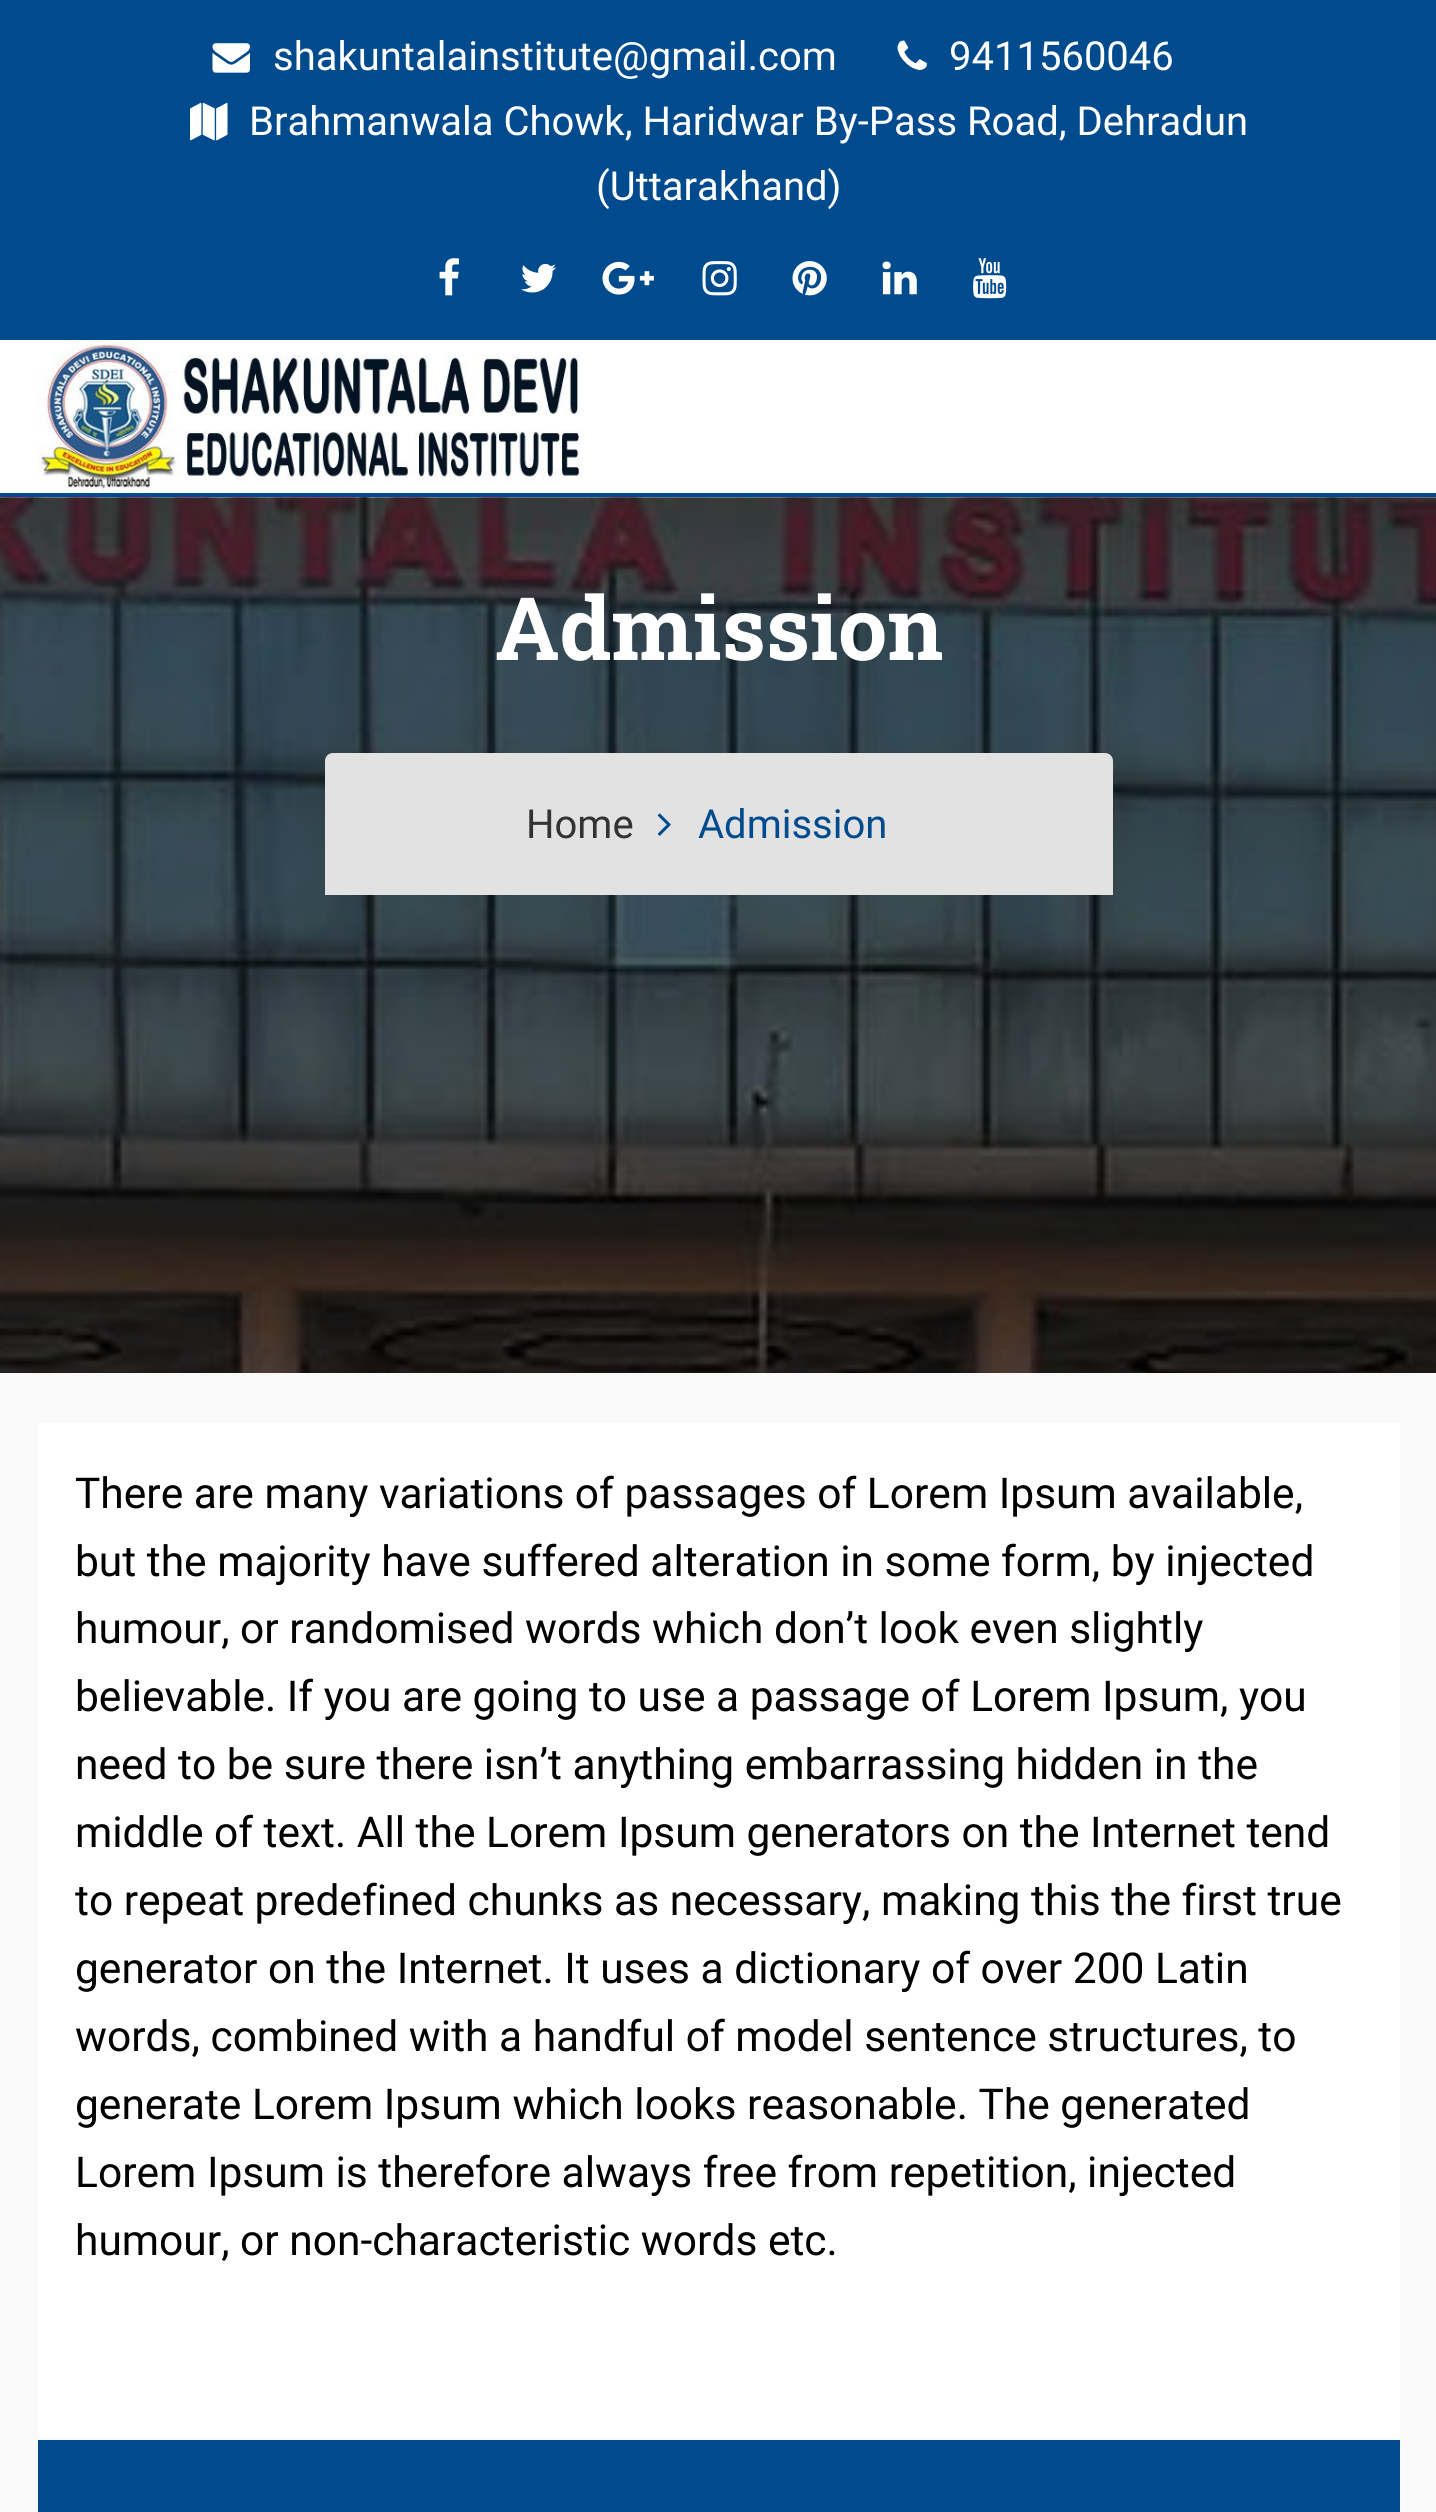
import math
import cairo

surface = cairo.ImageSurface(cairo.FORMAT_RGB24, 1436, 2512)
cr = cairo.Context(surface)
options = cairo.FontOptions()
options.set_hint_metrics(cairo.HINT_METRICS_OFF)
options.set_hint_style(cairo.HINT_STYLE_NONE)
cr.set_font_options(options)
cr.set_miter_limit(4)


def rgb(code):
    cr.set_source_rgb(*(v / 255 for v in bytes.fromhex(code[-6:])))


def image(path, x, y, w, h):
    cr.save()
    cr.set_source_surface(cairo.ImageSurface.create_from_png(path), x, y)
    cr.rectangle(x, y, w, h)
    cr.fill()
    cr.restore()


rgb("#ffffff")
cr.paint()
rgb("#004b8e")
cr.rectangle(0, 0, 1436, 340)
cr.fill()
image("img/1.png", 212, 43, 38, 30)
image("img/2.png", 897, 40, 30, 30)
image("img/3.png", 190, 102, 38, 39)
image("img/4.png", 439, 258, 20, 38)
image("img/5.png", 521, 263, 35, 30)
image("img/6.png", 602, 261, 52, 34)
image("img/7.png", 702, 261, 35, 35)
image("img/8.png", 792, 261, 35, 35)
image("img/9.png", 882, 261, 35, 34)
image("img/10.png", 973, 258, 34, 41)
cr.rectangle(0, 493, 1436, 4)
cr.fill()
image("img/11.png", 37, 340, 543, 151)
image("img/12.png", 0, 497, 1436, 876)
rgb("#e2e2e2")
cr.new_path()
cr.move_to(333, 753)
cr.line_to(1105, 753)
cr.curve_to(1109.5, 753, 1113, 756.5, 1113, 761)
cr.line_to(1113, 895)
cr.line_to(325, 895)
cr.line_to(325, 761)
cr.curve_to(325, 756.5, 328.5, 753, 333, 753)
cr.close_path()
cr.fill()
image("img/13.png", 657, 813, 14, 23)
for x, y, w, h, color in [
    (0, 1373, 1436, 1139, "#f9f9f9"),
    (38, 1423, 1362, 1015, "#ffffff"),
    (38, 2440, 1362, 72, "#004b8e"),
]:
    rgb(color)
    cr.rectangle(x, y, w, h)
    cr.fill()
cr.select_font_face("Roboto")
cr.set_font_size(40)
rgb("#ffffff")
for x, y, s in [
    (273, 70, "shakuntalainstitute@gmail.com"),
    (949, 70, "9411560046"),
    (249, 135, "Brahmanwala Chowk, Haridwar By-Pass Road, Dehradun"),
    (596, 200, "(Uttarakhand)"),
]:
    cr.move_to(x, y)
    cr.show_text(s)
cr.select_font_face("Roboto Slab", cairo.FONT_SLANT_NORMAL, cairo.FONT_WEIGHT_BOLD)
cr.set_font_size(87.5)
cr.move_to(495, 660)
cr.show_text("Admission")
cr.select_font_face("Roboto")
cr.set_font_size(40)
rgb("#333333")
cr.move_to(526, 838)
cr.show_text("Home")
rgb("#004b8e")
cr.move_to(698, 838)
cr.show_text("Admission")
cr.set_font_size(42.5)
rgb("#000000")
for x, y, s in [
    (75, 1508, "There are many variations of passages of Lorem Ipsum available,"),
    (75, 1576, "but the majority have suffered alteration in some form, by injected"),
    (75, 1643, "humour, or randomised words which don’t look even slightly"),
    (75, 1711, "believable. If you are going to use a passage of Lorem Ipsum, you"),
    (75, 1779, "need to be sure there isn’t anything embarrassing hidden in the"),
    (75, 1847, "middle of text. All the Lorem Ipsum generators on the Internet tend"),
    (75, 1915, "to repeat predefined chunks as necessary, making this the first true"),
    (75, 1983, "generator on the Internet. It uses a dictionary of over 200 Latin"),
    (75, 2051, "words, combined with a handful of model sentence structures, to"),
    (75, 2119, "generate Lorem Ipsum which looks reasonable. The generated"),
    (75, 2187, "Lorem Ipsum is therefore always free from repetition, injected"),
    (75, 2255, "humour, or non-characteristic words etc."),
]:
    cr.move_to(x, y)
    cr.show_text(s)
surface.write_to_png("page.png")
